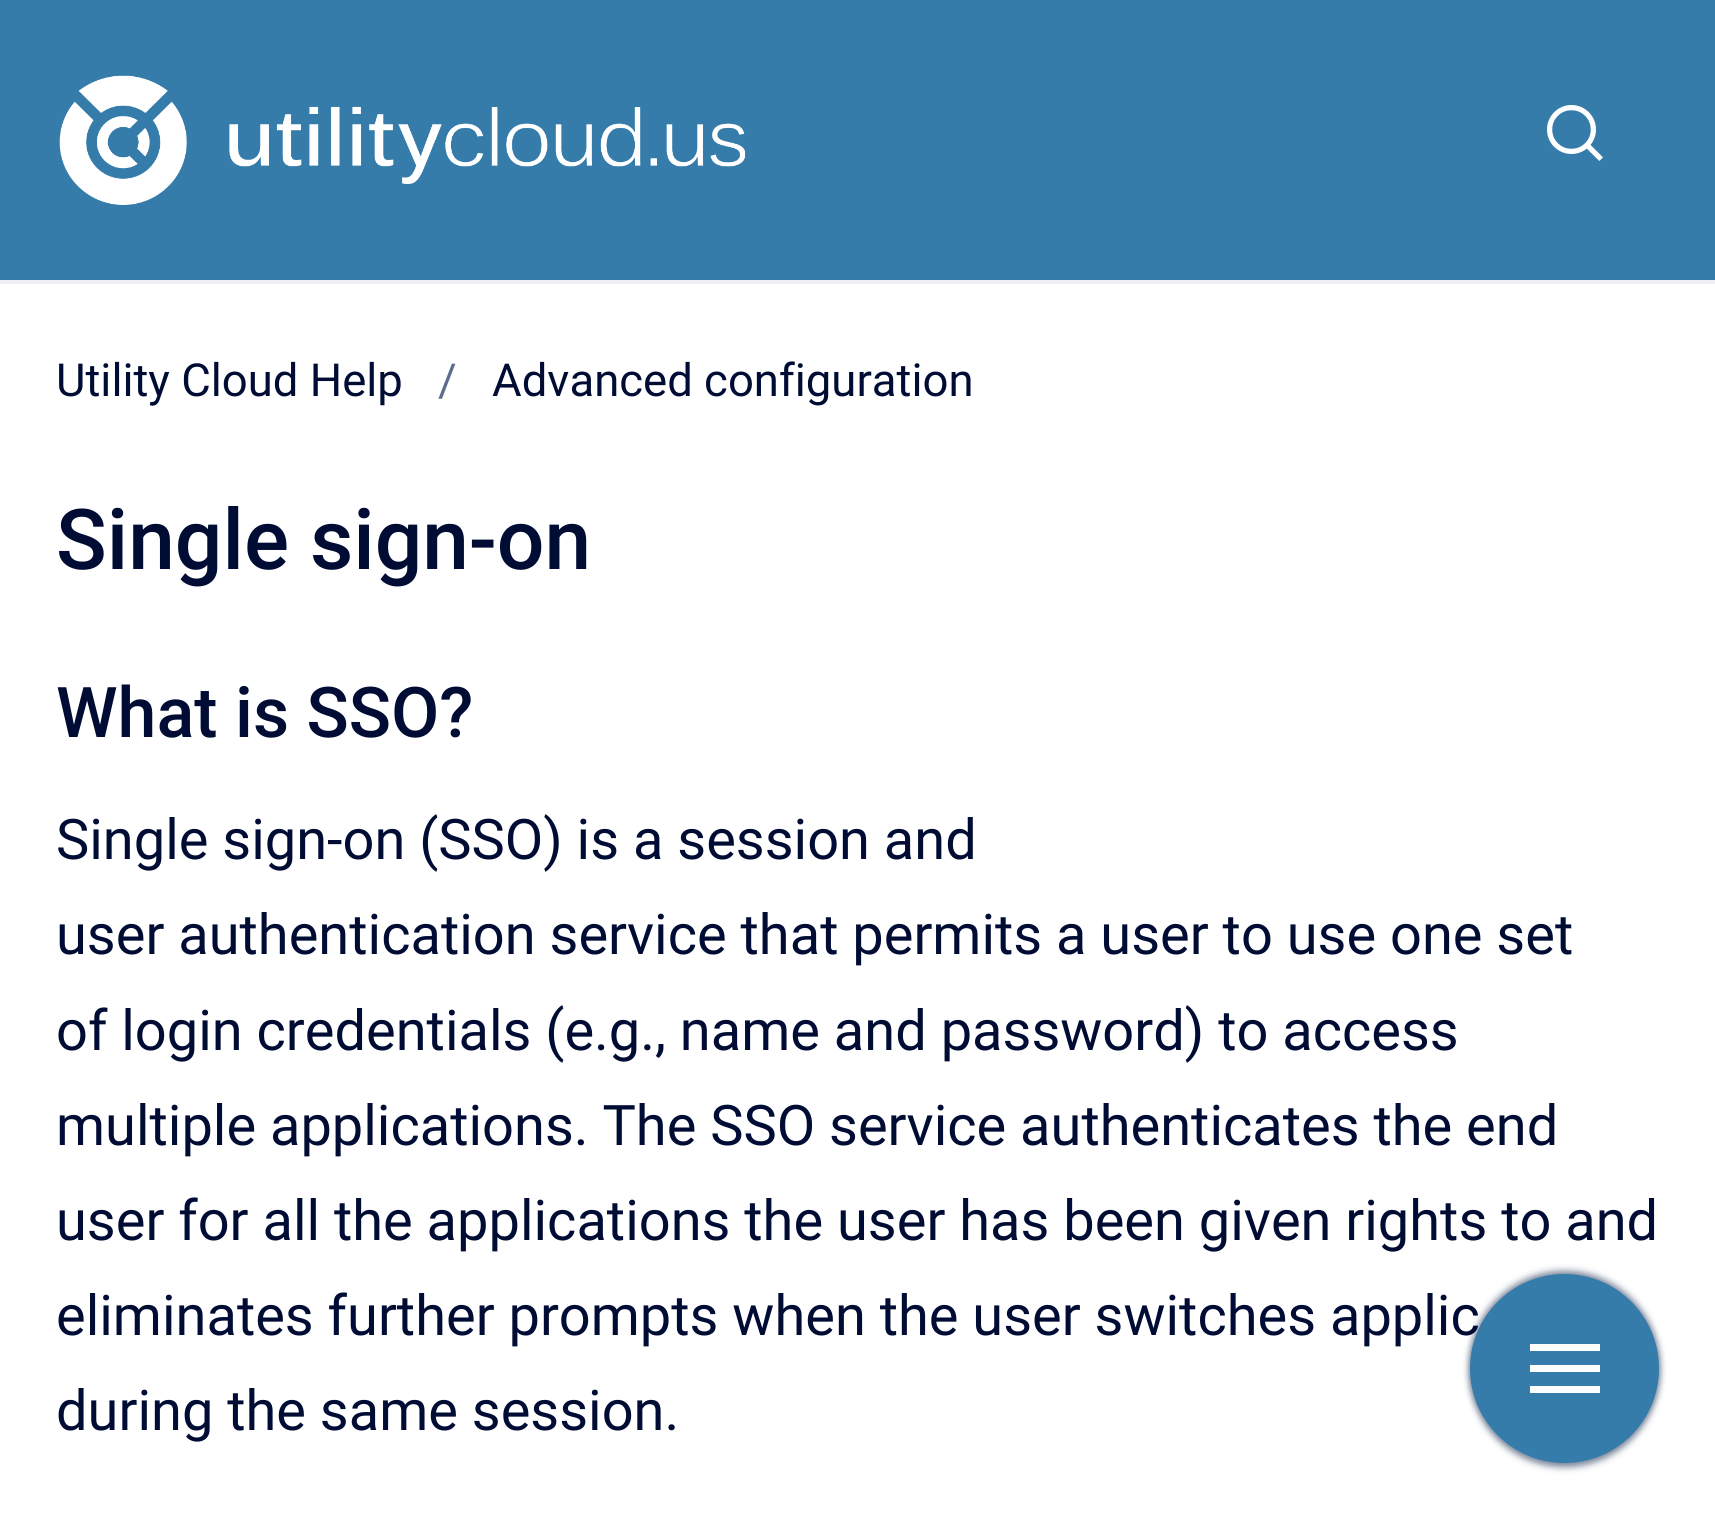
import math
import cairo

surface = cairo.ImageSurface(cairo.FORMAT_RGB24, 1715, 1517)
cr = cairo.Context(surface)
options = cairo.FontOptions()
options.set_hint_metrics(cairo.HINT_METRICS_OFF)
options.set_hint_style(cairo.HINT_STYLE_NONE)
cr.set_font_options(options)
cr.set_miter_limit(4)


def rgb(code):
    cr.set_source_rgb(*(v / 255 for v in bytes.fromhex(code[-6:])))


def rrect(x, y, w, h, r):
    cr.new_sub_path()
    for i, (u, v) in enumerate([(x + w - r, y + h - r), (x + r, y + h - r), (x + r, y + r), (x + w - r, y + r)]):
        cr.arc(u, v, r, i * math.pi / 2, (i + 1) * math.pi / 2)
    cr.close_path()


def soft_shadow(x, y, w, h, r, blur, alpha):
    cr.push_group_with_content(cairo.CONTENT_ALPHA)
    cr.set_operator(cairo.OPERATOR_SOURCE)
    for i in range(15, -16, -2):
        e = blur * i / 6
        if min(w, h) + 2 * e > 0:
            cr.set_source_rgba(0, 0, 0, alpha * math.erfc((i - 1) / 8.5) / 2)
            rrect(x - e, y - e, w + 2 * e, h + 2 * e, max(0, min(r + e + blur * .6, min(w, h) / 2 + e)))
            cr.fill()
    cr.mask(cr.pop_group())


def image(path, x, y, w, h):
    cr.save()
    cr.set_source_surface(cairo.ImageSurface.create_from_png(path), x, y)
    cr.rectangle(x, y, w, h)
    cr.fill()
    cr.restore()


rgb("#ffffff")
cr.paint()
rgb("#357caa")
cr.rectangle(0, 0, 1715, 280)
cr.fill()
rgb("#eff0f4")
cr.rectangle(0, 280, 1715, 4)
cr.fill()
image("img/1.png", 59, 75, 687, 130)
image("img/2.png", 1547, 105, 56, 56)
rgb("#7a869a")
soft_shadow(1470, 1271, 189, 189, 94.5, 3.5, 1)
soft_shadow(1470, 1278, 189, 189, 94.5, 3.5, 1)
cr.select_font_face("Roboto")
cr.set_font_size(45.5)
rgb("#000c34")
cr.move_to(56, 396)
cr.show_text("Utility Cloud Help")
rgb("#5d6b8f")
cr.move_to(438, 396)
cr.show_text("/")
rgb("#000c34")
cr.move_to(492, 396)
cr.show_text("Advanced configuration")
cr.select_font_face("Roboto Medium")
cr.set_font_size(84)
cr.move_to(56, 569)
cr.show_text("Single sign-on")
cr.set_font_size(70)
cr.move_to(56, 737)
cr.show_text("What is SSO?")
cr.select_font_face("Roboto")
cr.set_font_size(56)
for x, y, s in [
    (56, 859, "Single sign-on (SSO) is a session and"),
    (56, 954, "user authentication service that permits a user to use one set"),
    (56, 1050, "of login credentials (e.g., name and password) to access"),
    (56, 1145, "multiple applications. The SSO service authenticates the end"),
    (56, 1240, "user for all the applications the user has been given rights to and"),
    (56, 1335, "eliminates further prompts when the user switches applic"),
    (56, 1430, "during the same session."),
]:
    cr.move_to(x, y)
    cr.show_text(s)
rgb("#357caa")
cr.new_path()
cr.arc(1564.5, 1368.5, 94.5, 0, 2 * math.pi)
cr.fill()
for x, y, w, h, color in [
    (1530, 1344, 70, 7, "#ffffff"),
    (1530, 1365, 70, 7, "#ffffff"),
    (1530, 1386, 70, 7, "#ffffff"),
]:
    rgb(color)
    cr.rectangle(x, y, w, h)
    cr.fill()
surface.write_to_png("page.png")
